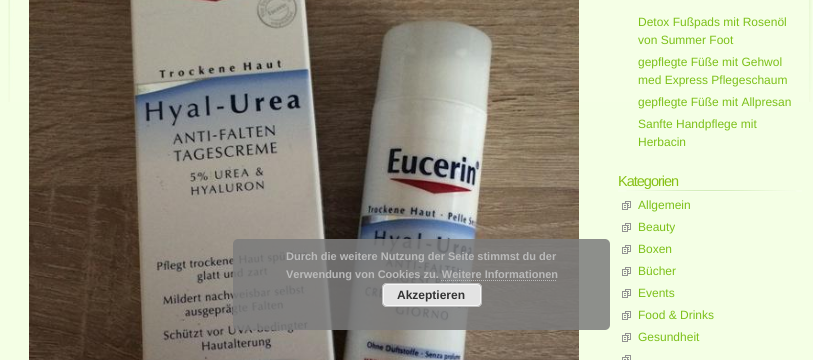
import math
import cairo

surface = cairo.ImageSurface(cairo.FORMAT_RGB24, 813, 360)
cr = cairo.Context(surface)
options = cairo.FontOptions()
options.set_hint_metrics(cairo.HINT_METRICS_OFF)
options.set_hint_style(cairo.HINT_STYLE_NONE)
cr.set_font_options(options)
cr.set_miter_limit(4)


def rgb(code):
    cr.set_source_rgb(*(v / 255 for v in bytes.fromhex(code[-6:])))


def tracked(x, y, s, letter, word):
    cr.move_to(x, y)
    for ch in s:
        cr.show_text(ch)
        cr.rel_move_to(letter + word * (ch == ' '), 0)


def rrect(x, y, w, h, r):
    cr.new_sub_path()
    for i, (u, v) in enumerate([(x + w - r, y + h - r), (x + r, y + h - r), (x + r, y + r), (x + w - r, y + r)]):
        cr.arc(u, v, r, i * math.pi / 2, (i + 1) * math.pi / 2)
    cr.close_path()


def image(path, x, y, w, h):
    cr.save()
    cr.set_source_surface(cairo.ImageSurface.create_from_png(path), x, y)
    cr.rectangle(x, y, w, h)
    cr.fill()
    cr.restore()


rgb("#f4ffe5")
cr.paint()
image("img/1.png", 8, 0, 804, 102)
image("img/2.png", 29, 0, 550, 360)
cr.set_source_rgba(0.486, 0.486, 0.486, 0.85)
rrect(233, 239, 377, 91, 5)
cr.fill()
cr.new_path()
cr.move_to(441, 280.5)
cr.line_to(557, 280.5)
rgb("#bababa")
cr.set_line_width(1)
cr.set_dash([1, 1])
cr.stroke()
rgb("#e3e3e3")
rrect(382, 283, 100, 24, 5)
cr.fill()
rrect(383.5, 284.5, 97, 21, 3.5)
rgb("#f6f6f6")
cr.set_dash([])
cr.stroke()
rrect(382.5, 283.5, 99, 23, 4.5)
rgb("#bbbbbb")
cr.stroke()
image("img/3.png", 618, 190, 184, 2)
image("img/4.png", 622, 201, 9, 9)
image("img/4.png", 622, 223, 9, 9)
image("img/4.png", 622, 245, 9, 9)
image("img/4.png", 622, 267, 9, 9)
image("img/4.png", 622, 289, 9, 9)
image("img/4.png", 622, 311, 9, 9)
image("img/4.png", 622, 333, 9, 9)
image("img/5.png", 622, 355, 9, 5)
cr.select_font_face("Liberation Sans", cairo.FONT_SLANT_NORMAL, cairo.FONT_WEIGHT_BOLD)
cr.set_font_size(11)
rgb("#bababa")
cr.move_to(286, 260)
cr.show_text("Durch die weitere Nutzung der Seite stimmst du der")
cr.move_to(286, 278)
cr.show_text("Verwendung von Cookies zu. Weitere Informationen")
cr.set_font_size(12)
rgb("#333333")
cr.move_to(397, 299)
cr.show_text("Akzeptieren")
cr.select_font_face("Liberation Sans")
rgb("#7cc018")
for x, y, s in [
    (638, 26, "Detox Fußpads mit Rosenöl"),
    (638, 44, "von Summer Foot"),
    (638, 66, "gepflegte Füße mit Gehwol"),
    (638, 84, "med Express Pflegeschaum"),
    (638, 106, "gepflegte Füße mit Allpresan"),
    (638, 128, "Sanfte Handpflege mit"),
    (638, 146, "Herbacin"),
]:
    cr.move_to(x, y)
    cr.show_text(s)
cr.set_font_size(14.5)
rgb("#86c014")
tracked(618, 186, "Kategorien", -1, 0)
cr.set_font_size(12)
rgb("#7cc018")
for x, y, s in [
    (638, 209, "Allgemein"),
    (638, 231, "Beauty"),
    (638, 253, "Boxen"),
    (638, 275, "Bücher"),
    (638, 297, "Events"),
    (638, 319, "Food & Drinks"),
    (638, 341, "Gesundheit"),
]:
    cr.move_to(x, y)
    cr.show_text(s)
surface.write_to_png("page.png")
